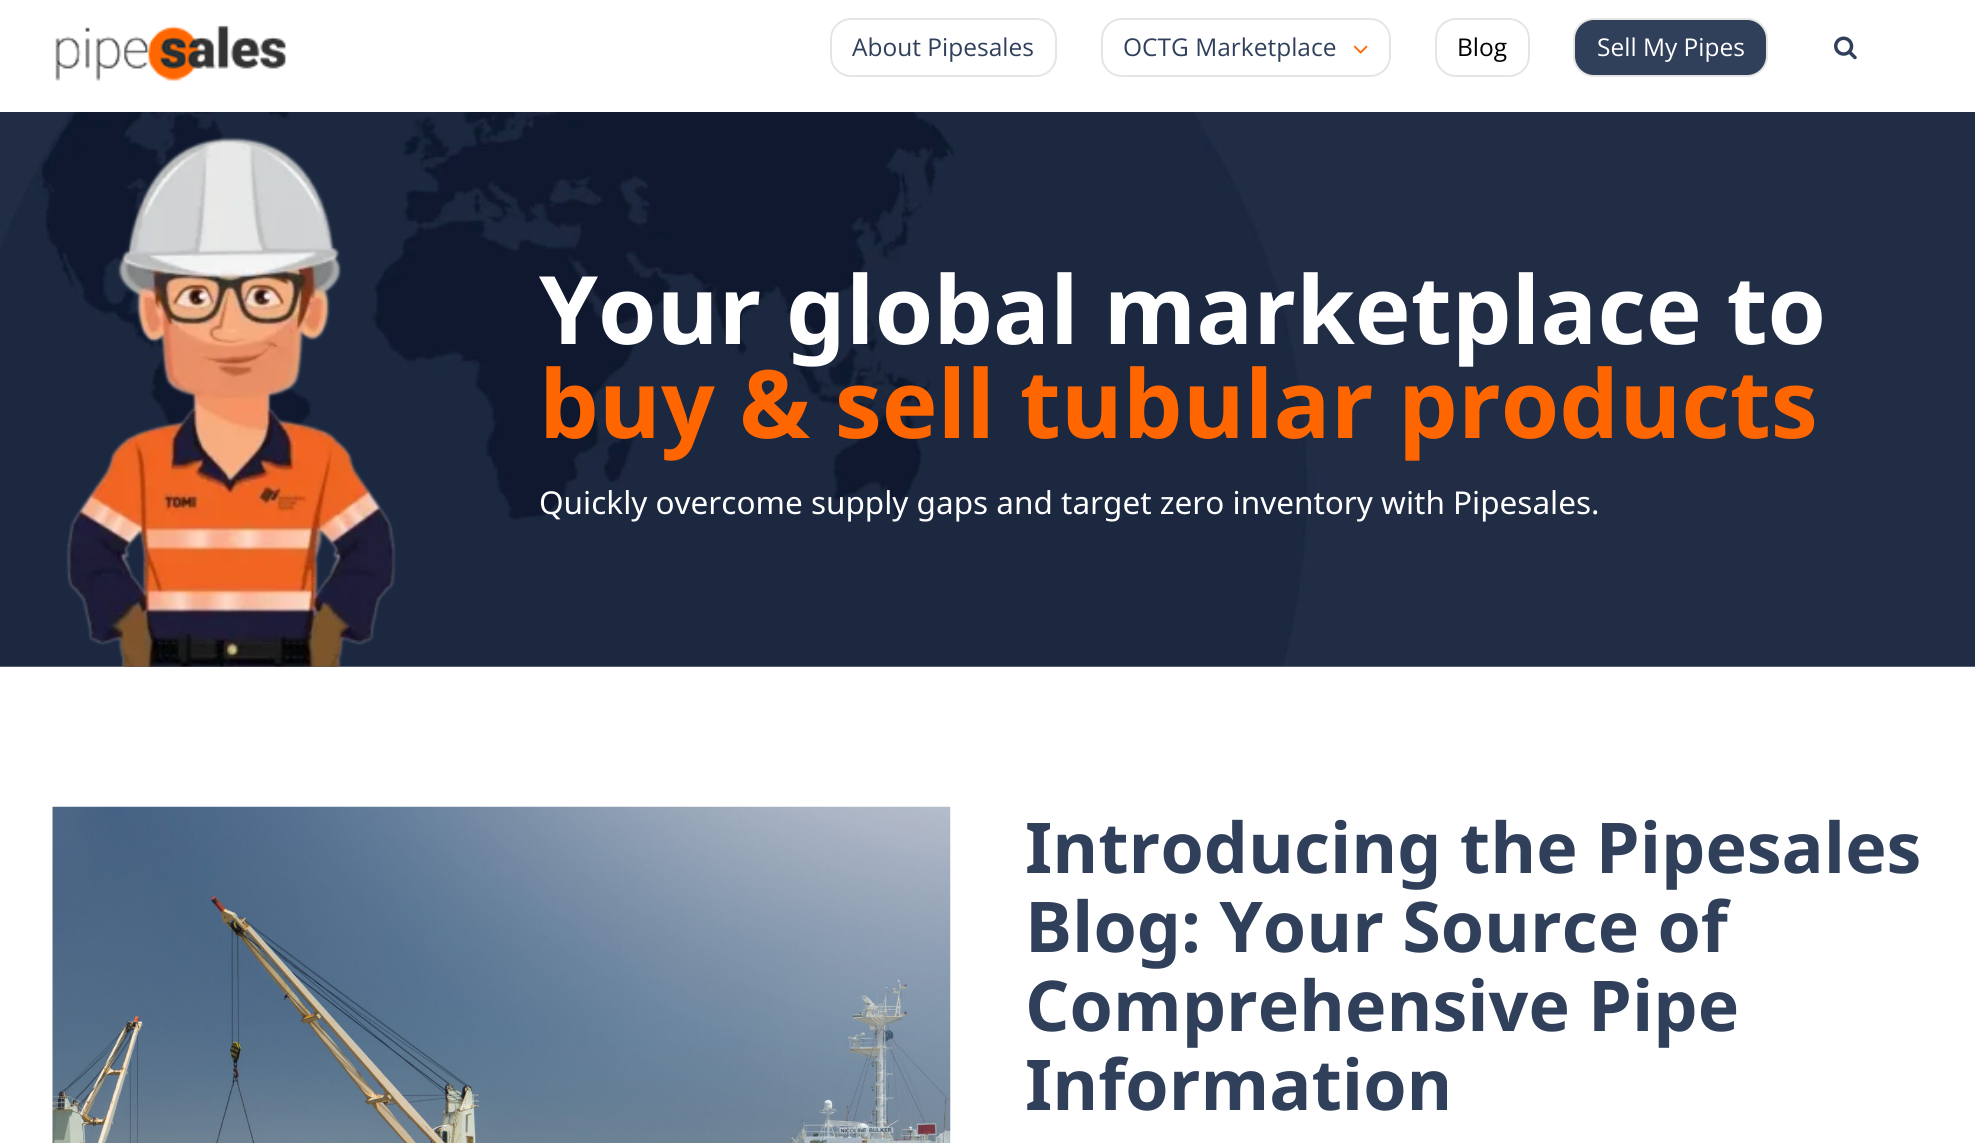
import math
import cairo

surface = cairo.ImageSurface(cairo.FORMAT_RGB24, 1975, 1143)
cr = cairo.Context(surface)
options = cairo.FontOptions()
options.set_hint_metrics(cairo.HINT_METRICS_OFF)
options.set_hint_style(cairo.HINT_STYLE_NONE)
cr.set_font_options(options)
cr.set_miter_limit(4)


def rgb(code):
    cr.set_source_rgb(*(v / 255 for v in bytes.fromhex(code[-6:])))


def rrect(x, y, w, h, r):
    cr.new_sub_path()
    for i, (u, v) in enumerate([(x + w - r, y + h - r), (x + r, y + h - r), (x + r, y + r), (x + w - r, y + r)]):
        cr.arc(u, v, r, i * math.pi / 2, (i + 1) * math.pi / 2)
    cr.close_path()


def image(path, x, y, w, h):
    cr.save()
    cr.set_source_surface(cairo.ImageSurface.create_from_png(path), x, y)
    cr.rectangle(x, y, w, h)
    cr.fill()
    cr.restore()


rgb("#ffffff")
cr.paint()
image("img/1.png", 55, 25, 231, 56)
rrect(831, 19, 225, 57, 20)
rgb("#e5e5e5")
cr.stroke()
rrect(1102, 19, 288, 57, 20)
cr.stroke()
image("img/2.png", 1353, 45, 15, 9)
rrect(1436, 19, 93, 57, 20)
cr.stroke()
rgb("#30405b")
rrect(1574, 19, 193, 57, 20)
cr.fill_preserve()
rgb("#e5e5e5")
cr.stroke()
image("img/3.png", 1834, 36, 23, 24)
image("img/4.png", 0, 112, 1975, 555)
image("img/5.png", 66, 137, 330, 530)
image("img/6.png", 52, 806, 899, 337)
cr.select_font_face("Open Sans")
cr.set_font_size(24.5)
rgb("#30405b")
cr.move_to(852, 56)
cr.show_text("About Pipesales")
cr.move_to(1123, 56)
cr.show_text("OCTG Marketplace")
rgb("#000000")
cr.move_to(1457, 56)
cr.show_text("Blog")
rgb("#ffffff")
cr.move_to(1597, 56)
cr.show_text("Sell My Pipes")
cr.select_font_face("Noto Sans", cairo.FONT_SLANT_NORMAL, cairo.FONT_WEIGHT_BOLD)
cr.set_font_size(94.5)
cr.move_to(539, 344)
cr.show_text("Your global marketplace to")
rgb("#ff6600")
cr.move_to(539, 438)
cr.show_text("buy & sell tubular products")
cr.select_font_face("Noto Sans")
cr.set_font_size(31.5)
rgb("#ffffff")
cr.move_to(539, 514)
cr.show_text("Quickly overcome supply gaps and target zero inventory with Pipesales.")
cr.select_font_face("Noto Sans", cairo.FONT_SLANT_NORMAL, cairo.FONT_WEIGHT_BOLD)
cr.set_font_size(70)
rgb("#30405b")
for x, y, s in [
    (1025, 873, "Introducing the Pipesales"),
    (1025, 952, "Blog: Your Source of"),
    (1025, 1031, "Comprehensive Pipe"),
    (1025, 1110, "Information"),
]:
    cr.move_to(x, y)
    cr.show_text(s)
surface.write_to_png("page.png")
